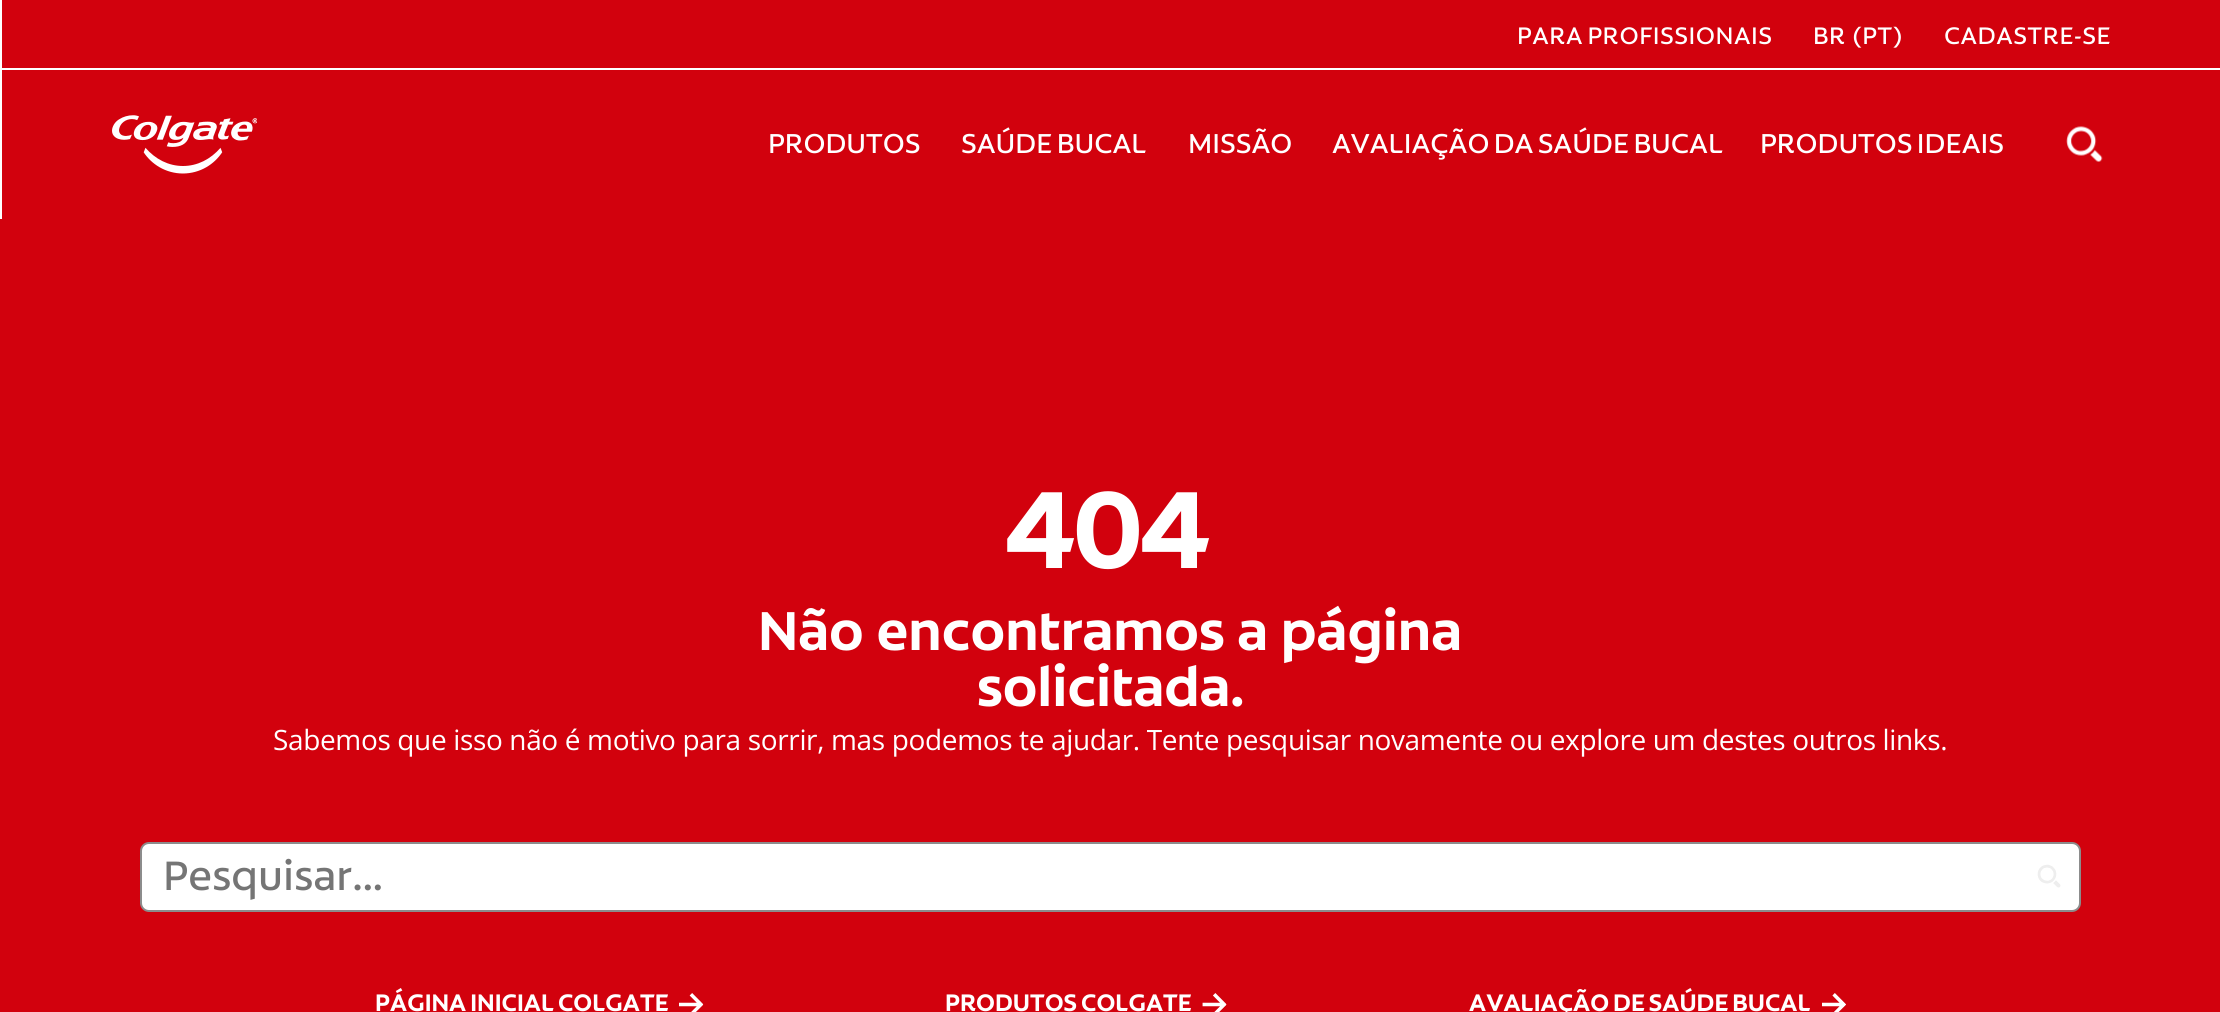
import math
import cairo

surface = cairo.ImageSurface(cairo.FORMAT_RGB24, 2220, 1012)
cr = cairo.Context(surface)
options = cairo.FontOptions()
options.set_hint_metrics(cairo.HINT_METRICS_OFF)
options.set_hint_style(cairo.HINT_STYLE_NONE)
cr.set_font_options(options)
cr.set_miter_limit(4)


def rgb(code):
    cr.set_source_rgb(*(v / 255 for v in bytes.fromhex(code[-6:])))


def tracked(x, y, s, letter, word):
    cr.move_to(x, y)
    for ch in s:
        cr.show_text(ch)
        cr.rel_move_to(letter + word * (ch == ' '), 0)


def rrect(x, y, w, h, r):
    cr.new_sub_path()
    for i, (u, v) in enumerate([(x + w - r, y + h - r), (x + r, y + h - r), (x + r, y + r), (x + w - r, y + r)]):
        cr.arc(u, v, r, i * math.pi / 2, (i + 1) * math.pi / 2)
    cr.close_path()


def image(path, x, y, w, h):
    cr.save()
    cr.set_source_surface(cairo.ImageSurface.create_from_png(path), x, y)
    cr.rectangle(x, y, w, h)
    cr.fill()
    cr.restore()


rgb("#ffffff")
cr.paint()
rgb("#d2010d")
cr.rectangle(2, 70, 2218, 149)
cr.fill()
image("img/1.png", 112, 115, 145, 59)
cr.rectangle(2, 0, 2218, 68)
cr.fill()
image("img/2.png", 2066, 126, 37, 36)
cr.rectangle(0, 219, 2220, 793)
cr.fill()
rgb("#ffffff")
rrect(141, 843, 1939, 68, 8)
cr.fill_preserve()
rgb("#8c8c8c")
cr.stroke()
image("img/3.png", 2037, 864, 24, 24)
image("img/4.png", 679, 993, 25, 19)
image("img/5.png", 1202, 993, 25, 19)
image("img/6.png", 1822, 993, 24, 19)
cr.select_font_face("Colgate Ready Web")
cr.set_font_size(24.5)
rgb("#ffffff")
tracked(1517, 44, "PARA PROFISSIONAIS", 0.5, -1.5)
tracked(1813, 44, "BR (PT)", 0.5, 1)
tracked(1944, 44, "CADASTRE-SE", 0.5, 0)
cr.set_font_size(28)
cr.move_to(768, 153)
cr.show_text("PRODUTOS")
tracked(961, 153, "SAÚDE BUCAL", 0, -2)
cr.move_to(1188, 153)
cr.show_text("MISSÃO")
tracked(1332, 153, "AVALIAÇÃO DA SAÚDE BUCAL", 0, -2)
tracked(1760, 153, "PRODUTOS IDEAIS", 0, -2)
cr.select_font_face("Colgate Ready Web", cairo.FONT_SLANT_NORMAL, cairo.FONT_WEIGHT_BOLD)
cr.set_font_size(112)
tracked(1006, 568, "404", -1.5, 0)
cr.set_font_size(56)
cr.move_to(758, 650)
cr.show_text("Não encontramos a página")
cr.move_to(977, 706)
cr.show_text("solicitada.")
cr.select_font_face("Open Sans")
cr.set_font_size(28)
tracked(273, 750, "Sabemos que isso não é motivo para sorrir, mas podemos te ajudar. Tente pesquisar novamente ou explore um destes outros links.", -0.35, 0)
cr.select_font_face("Colgate Ready Web")
cr.set_font_size(42)
rgb("#757575")
cr.move_to(163, 890)
cr.show_text("Pesquisar...")
cr.select_font_face("Colgate Ready Web", cairo.FONT_SLANT_NORMAL, cairo.FONT_WEIGHT_BOLD)
cr.set_font_size(24.5)
rgb("#ffffff")
for x, y, s in [
    (375, 1011, "PÁGINA INICIAL COLGATE"),
    (945, 1011, "PRODUTOS COLGATE"),
    (1469, 1011, "AVALIAÇÃO DE SAÚDE BUCAL"),
]:
    tracked(x, y, s, 0, -1.5)
surface.write_to_png("page.png")
